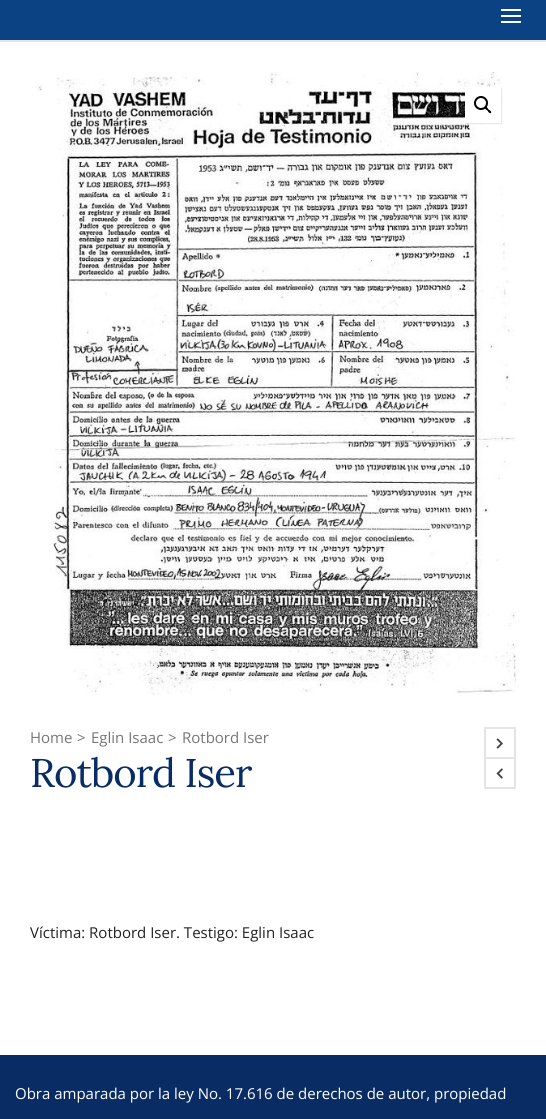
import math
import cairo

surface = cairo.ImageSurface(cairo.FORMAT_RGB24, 546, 1119)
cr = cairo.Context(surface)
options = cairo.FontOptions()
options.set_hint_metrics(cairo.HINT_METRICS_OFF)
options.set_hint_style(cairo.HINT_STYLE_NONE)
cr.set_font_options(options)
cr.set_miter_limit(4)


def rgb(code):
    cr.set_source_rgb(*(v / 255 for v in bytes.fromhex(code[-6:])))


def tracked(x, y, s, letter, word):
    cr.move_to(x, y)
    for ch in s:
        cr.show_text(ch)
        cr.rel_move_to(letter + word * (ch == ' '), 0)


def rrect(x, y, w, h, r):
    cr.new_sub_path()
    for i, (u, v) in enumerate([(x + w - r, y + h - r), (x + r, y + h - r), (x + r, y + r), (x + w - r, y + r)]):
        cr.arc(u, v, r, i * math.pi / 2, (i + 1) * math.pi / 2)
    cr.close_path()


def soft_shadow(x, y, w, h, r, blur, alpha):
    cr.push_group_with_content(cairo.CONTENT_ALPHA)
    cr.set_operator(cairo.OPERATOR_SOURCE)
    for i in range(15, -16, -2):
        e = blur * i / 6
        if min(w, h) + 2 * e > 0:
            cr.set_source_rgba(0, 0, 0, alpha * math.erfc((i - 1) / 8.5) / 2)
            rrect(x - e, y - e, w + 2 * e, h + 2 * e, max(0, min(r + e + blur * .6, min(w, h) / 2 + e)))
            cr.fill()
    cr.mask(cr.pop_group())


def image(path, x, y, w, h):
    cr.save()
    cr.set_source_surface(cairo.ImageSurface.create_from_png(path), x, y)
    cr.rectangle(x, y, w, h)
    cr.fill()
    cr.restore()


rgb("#0a2c64")
cr.paint()
for x, y, w, h, color in [
    (0, 0, 546, 40, "#0b4284"),
    (0, 40, 546, 2, "#e4e4e4"),
    (501, 15, 20, 2, "#ffffff"),
    (501, 9, 20, 2, "#ffffff"),
    (501, 21, 20, 2, "#ffffff"),
    (0, 42, 546, 1013, "#ffffff"),
]:
    rgb(color)
    cr.rectangle(x, y, w, h)
    cr.fill()
image("img/1.png", 36, 72, 480, 623)
rgb("#000000")
soft_shadow(466, 88, 36, 36, 0, 0.5, 0.1)
rgb("#ffffff")
cr.rectangle(465, 87, 36, 36)
cr.fill()
cr.arc(481, 103, 6, 0, 2 * math.pi)
rgb("#000000")
cr.stroke()
cr.new_path()
cr.move_to(485, 107)
cr.curve_to(486.5, 106, 488, 108.5, 488.5, 109.5)
cr.curve_to(489.5, 110, 492, 111.5, 491, 113)
cr.curve_to(489.5, 114, 488, 111.5, 487.5, 110.5)
cr.curve_to(486.5, 110, 484, 108.5, 485, 107)
cr.close_path()
cr.fill()
cr.rectangle(485, 728, 30, 30)
rgb("#e4e4e4")
cr.stroke()
image("img/2.png", 496, 738, 7, 11)
cr.rectangle(485, 758, 30, 30)
cr.stroke()
image("img/3.png", 496, 768, 7, 11)
cr.select_font_face("Open Sans")
cr.set_font_size(15)
rgb("#767676")
for x, y, s in [
    (30, 743, "Home"),
    (77, 743, ">"),
    (91, 743, "Eglin Isaac"),
    (168, 743, ">"),
    (182, 743, "Rotbord Iser"),
]:
    cr.move_to(x, y)
    cr.show_text(s)
cr.select_font_face("Lora")
cr.set_font_size(40)
rgb("#0a2c64")
tracked(30, 787, "Rotbord Iser", -1, 0)
cr.select_font_face("Open Sans")
cr.set_font_size(15)
rgb("#222222")
cr.move_to(30, 938)
cr.show_text("Víctima: Rotbord Iser. Testigo: Eglin Isaac")
rgb("#ffffff")
cr.move_to(15, 1099)
cr.show_text("Obra amparada por la ley No. 17.616 de derechos de autor, propiedad")
surface.write_to_png("page.png")
